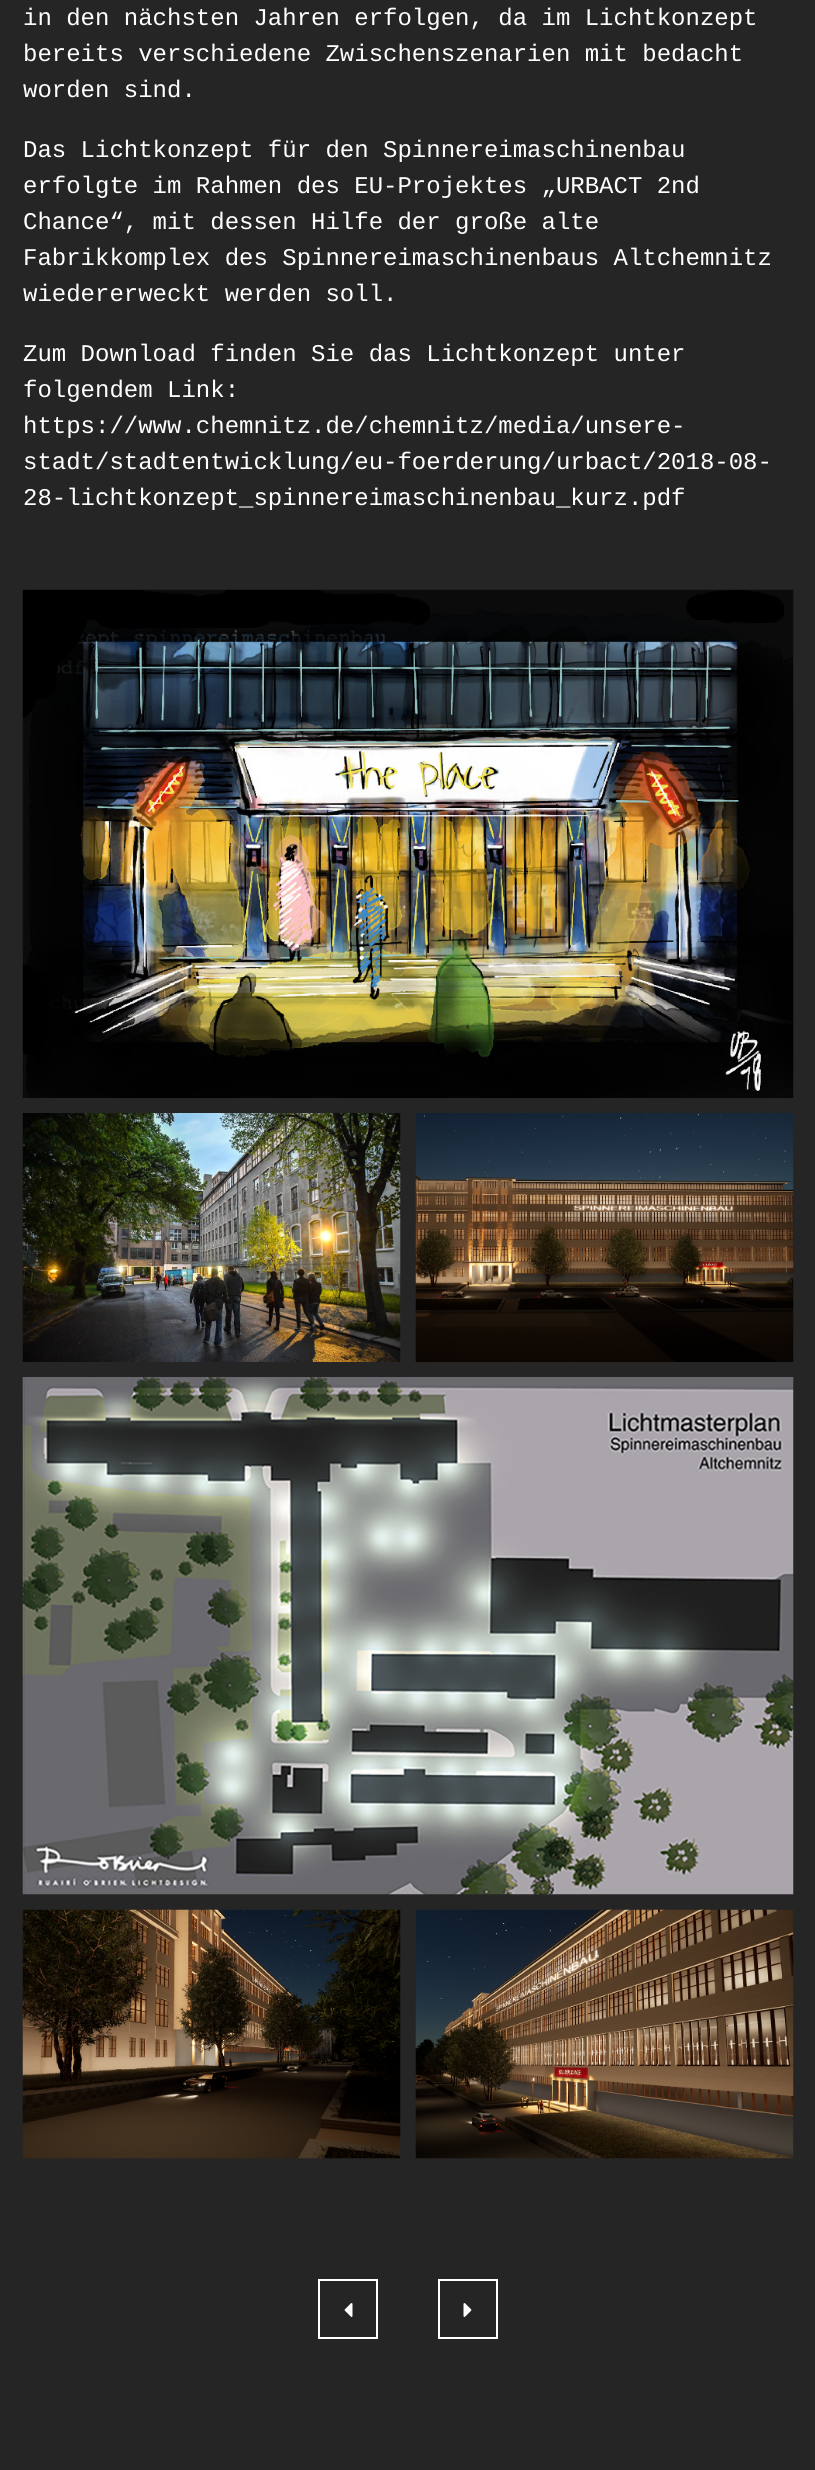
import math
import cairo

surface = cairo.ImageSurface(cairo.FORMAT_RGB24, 815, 2470)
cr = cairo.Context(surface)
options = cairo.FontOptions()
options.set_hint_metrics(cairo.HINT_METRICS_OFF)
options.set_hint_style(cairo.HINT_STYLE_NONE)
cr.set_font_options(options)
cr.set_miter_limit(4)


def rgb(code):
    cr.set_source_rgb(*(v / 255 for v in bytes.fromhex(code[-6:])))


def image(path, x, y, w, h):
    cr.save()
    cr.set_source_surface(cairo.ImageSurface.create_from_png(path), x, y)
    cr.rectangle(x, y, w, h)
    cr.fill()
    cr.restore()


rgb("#252525")
cr.paint()
image("img/1.png", 22, 589, 772, 509)
image("img/2.png", 22, 1113, 379, 249)
image("img/3.png", 415, 1113, 379, 249)
image("img/4.png", 22, 1377, 772, 518)
image("img/5.png", 22, 1909, 379, 250)
image("img/6.png", 415, 1909, 379, 250)
cr.rectangle(319, 2280, 58, 58)
rgb("#ffffff")
cr.stroke()
image("img/7.png", 344, 2303, 9, 14)
cr.rectangle(439, 2280, 58, 58)
cr.stroke()
image("img/8.png", 463, 2303, 9, 14)
cr.select_font_face("Liberation Mono")
cr.set_font_size(24)
for x, y, s in [
    (23, 25, "in den nächsten Jahren erfolgen, da im Lichtkonzept"),
    (23, 61, "bereits verschiedene Zwischenszenarien mit bedacht"),
    (23, 97, "worden sind."),
    (23, 157, "Das Lichtkonzept für den Spinnereimaschinenbau"),
    (23, 193, "erfolgte im Rahmen des EU-Projektes „URBACT 2nd"),
    (23, 229, "Chance“, mit dessen Hilfe der große alte"),
    (23, 265, "Fabrikkomplex des Spinnereimaschinenbaus Altchemnitz"),
    (23, 301, "wiedererweckt werden soll."),
    (23, 361, "Zum Download finden Sie das Lichtkonzept unter"),
    (23, 397, "folgendem Link:"),
    (23, 433, "https://www.chemnitz.de/chemnitz/media/unsere-"),
    (23, 469, "stadt/stadtentwicklung/eu-foerderung/urbact/2018-08-"),
    (23, 505, "28-lichtkonzept_spinnereimaschinenbau_kurz.pdf"),
]:
    cr.move_to(x, y)
    cr.show_text(s)
surface.write_to_png("page.png")
